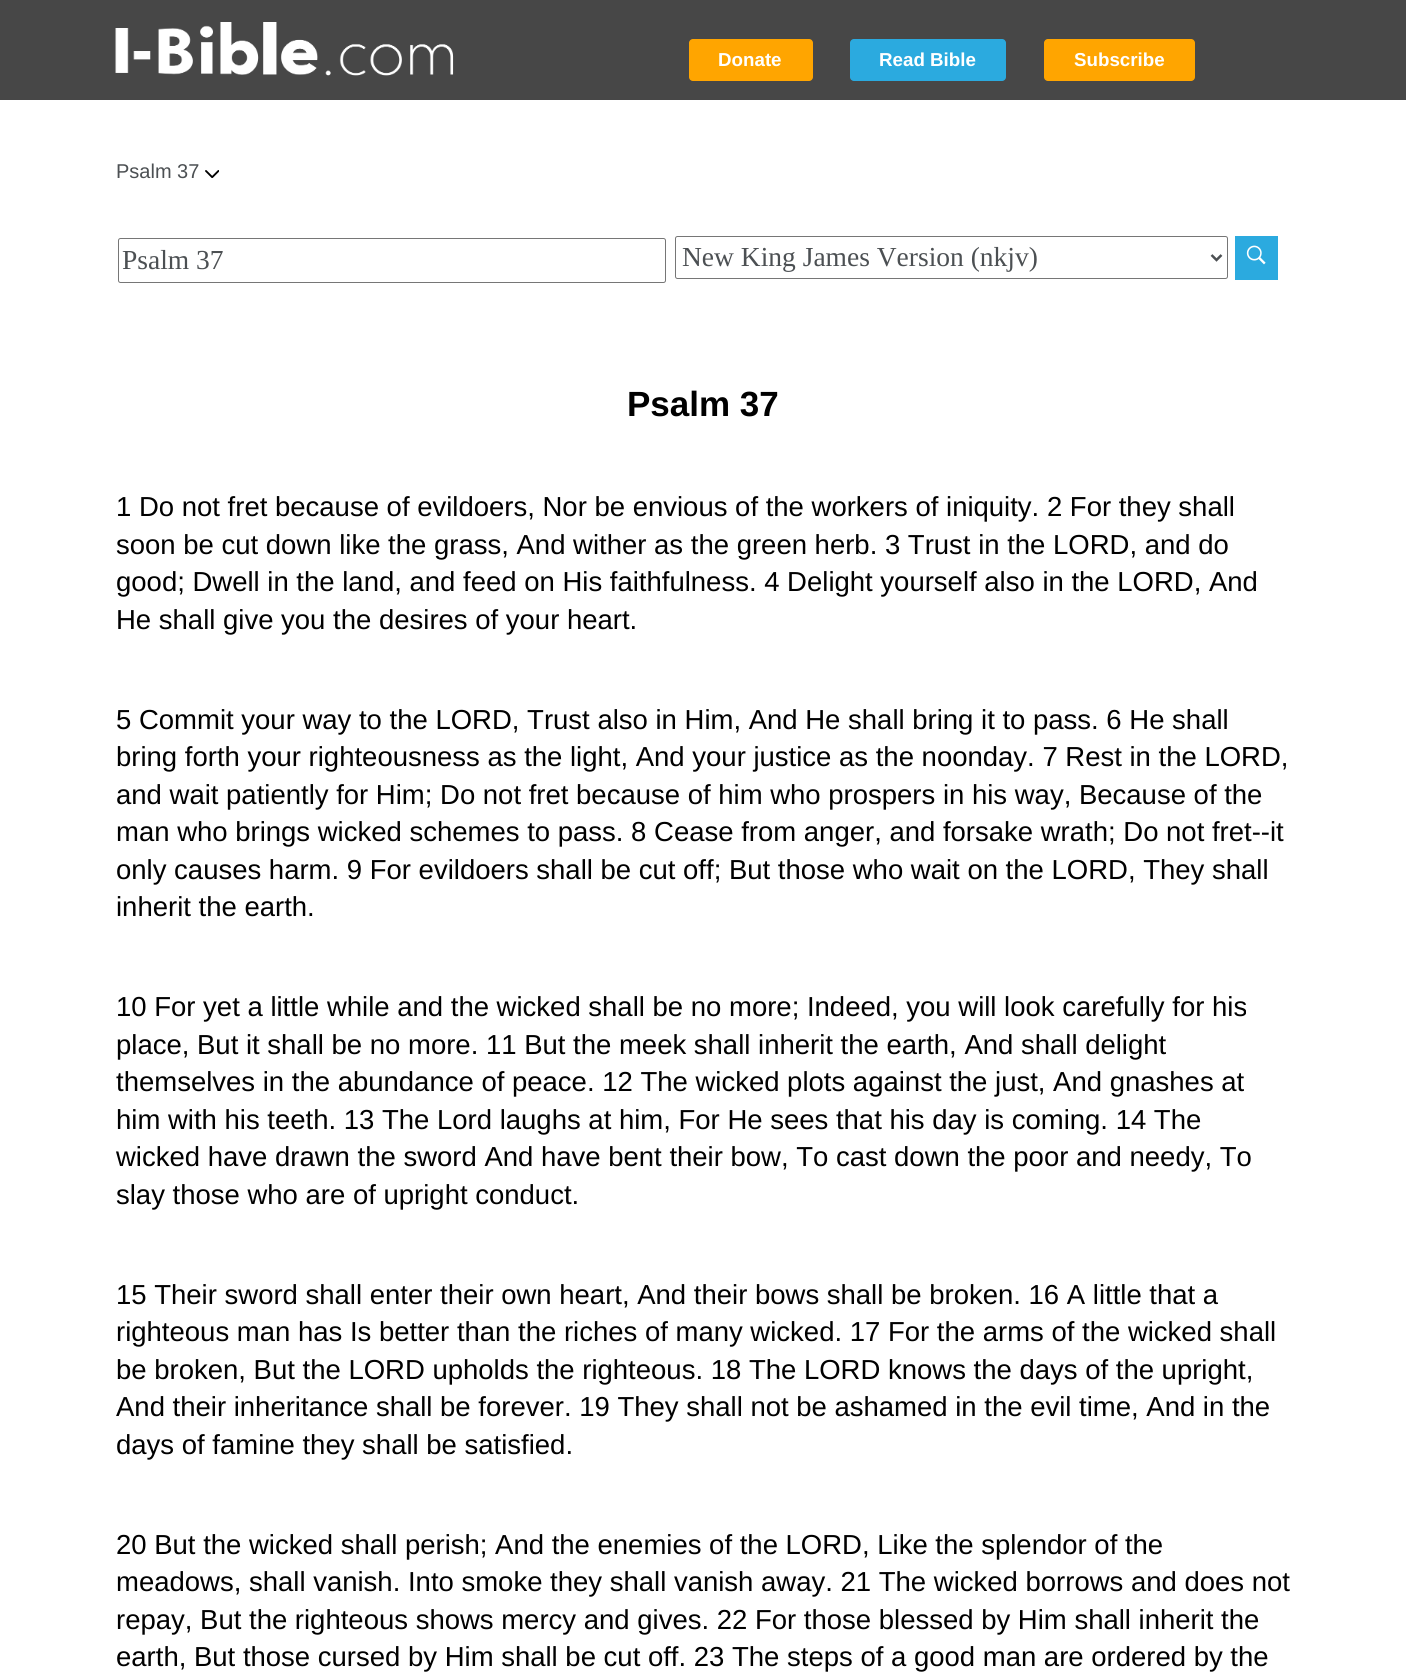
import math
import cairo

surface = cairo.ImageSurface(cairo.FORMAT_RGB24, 1406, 1678)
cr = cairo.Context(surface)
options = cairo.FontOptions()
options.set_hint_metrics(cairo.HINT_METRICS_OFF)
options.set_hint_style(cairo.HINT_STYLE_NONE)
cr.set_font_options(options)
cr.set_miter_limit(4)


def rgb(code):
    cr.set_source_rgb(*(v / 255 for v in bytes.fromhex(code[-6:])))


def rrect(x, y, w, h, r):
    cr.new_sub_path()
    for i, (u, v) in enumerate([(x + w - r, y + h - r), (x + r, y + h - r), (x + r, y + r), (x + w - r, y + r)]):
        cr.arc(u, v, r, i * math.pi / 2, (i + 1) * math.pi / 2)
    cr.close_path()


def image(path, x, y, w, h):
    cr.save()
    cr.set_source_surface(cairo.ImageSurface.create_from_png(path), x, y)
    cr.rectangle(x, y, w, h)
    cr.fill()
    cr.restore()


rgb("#ffffff")
cr.paint()
rgb("#474747")
cr.rectangle(0, 0, 1406, 100)
cr.fill()
image("img/1.png", 115, 22, 339, 54)
rgb("#ffa500")
rrect(689, 39, 124, 42, 4)
cr.fill()
rgb("#2baadf")
rrect(850, 39, 156, 42, 4)
cr.fill()
rgb("#ffa500")
rrect(1044, 39, 151, 42, 4)
cr.fill()
image("img/2.png", 205, 170, 14, 8)
rrect(118.5, 238.5, 547, 44, 2)
rgb("#767676")
cr.set_line_width(1)
cr.stroke()
rrect(675.5, 236.5, 552, 42, 2)
cr.stroke()
cr.new_path()
cr.move_to(1211.5, 255)
cr.line_to(1216.5, 260)
cr.line_to(1221.5, 255)
rgb("#4c5053")
cr.set_line_width(2.5)
cr.stroke()
rgb("#2baadf")
cr.rectangle(1235, 236, 43, 44)
cr.fill()
image("img/3.png", 1246, 245, 20, 20)
cr.select_font_face("Liberation Sans", cairo.FONT_SLANT_NORMAL, cairo.FONT_WEIGHT_BOLD)
cr.set_font_size(18.75)
rgb("#ffffff")
for x, y, s in [
    (718, 66, "Donate"),
    (879, 66, "Read Bible"),
    (1074, 66, "Subscribe"),
]:
    cr.move_to(x, y)
    cr.show_text(s)
cr.select_font_face("Liberation Sans")
cr.set_font_size(20)
rgb("#4c5053")
cr.move_to(116, 178)
cr.show_text("Psalm 37")
cr.select_font_face("Liberation Serif")
cr.set_font_size(27.5)
cr.move_to(122, 269)
cr.show_text("Psalm 37")
cr.move_to(682, 266)
cr.show_text("New King James Version (nkjv)")
cr.select_font_face("Liberation Sans", cairo.FONT_SLANT_NORMAL, cairo.FONT_WEIGHT_BOLD)
cr.set_font_size(35)
rgb("#000000")
cr.move_to(627, 416)
cr.show_text("Psalm 37")
cr.select_font_face("Liberation Sans")
cr.set_font_size(27.5)
for x, y, s in [
    (116, 516, "1 Do not fret because of evildoers, Nor be envious of the workers of iniquity. 2 For they shall"),
    (116, 554, "soon be cut down like the grass, And wither as the green herb. 3 Trust in the LORD, and do"),
    (116, 591, "good; Dwell in the land, and feed on His faithfulness. 4 Delight yourself also in the LORD, And"),
    (116, 629, "He shall give you the desires of your heart."),
    (116, 729, "5 Commit your way to the LORD, Trust also in Him, And He shall bring it to pass. 6 He shall"),
    (116, 766, "bring forth your righteousness as the light, And your justice as the noonday. 7 Rest in the LORD,"),
    (116, 804, "and wait patiently for Him; Do not fret because of him who prospers in his way, Because of the"),
    (116, 841, "man who brings wicked schemes to pass. 8 Cease from anger, and forsake wrath; Do not fret--it"),
    (116, 879, "only causes harm. 9 For evildoers shall be cut off; But those who wait on the LORD, They shall"),
    (116, 916, "inherit the earth."),
    (116, 1016, "10 For yet a little while and the wicked shall be no more; Indeed, you will look carefully for his"),
    (116, 1054, "place, But it shall be no more. 11 But the meek shall inherit the earth, And shall delight"),
    (116, 1091, "themselves in the abundance of peace. 12 The wicked plots against the just, And gnashes at"),
    (116, 1129, "him with his teeth. 13 The Lord laughs at him, For He sees that his day is coming. 14 The"),
    (116, 1166, "wicked have drawn the sword And have bent their bow, To cast down the poor and needy, To"),
    (116, 1204, "slay those who are of upright conduct."),
    (116, 1304, "15 Their sword shall enter their own heart, And their bows shall be broken. 16 A little that a"),
    (116, 1341, "righteous man has Is better than the riches of many wicked. 17 For the arms of the wicked shall"),
    (116, 1379, "be broken, But the LORD upholds the righteous. 18 The LORD knows the days of the upright,"),
    (116, 1416, "And their inheritance shall be forever. 19 They shall not be ashamed in the evil time, And in the"),
    (116, 1454, "days of famine they shall be satisfied."),
    (116, 1554, "20 But the wicked shall perish; And the enemies of the LORD, Like the splendor of the"),
    (116, 1591, "meadows, shall vanish. Into smoke they shall vanish away. 21 The wicked borrows and does not"),
    (116, 1629, "repay, But the righteous shows mercy and gives. 22 For those blessed by Him shall inherit the"),
    (116, 1666, "earth, But those cursed by Him shall be cut off. 23 The steps of a good man are ordered by the"),
]:
    cr.move_to(x, y)
    cr.show_text(s)
surface.write_to_png("page.png")
